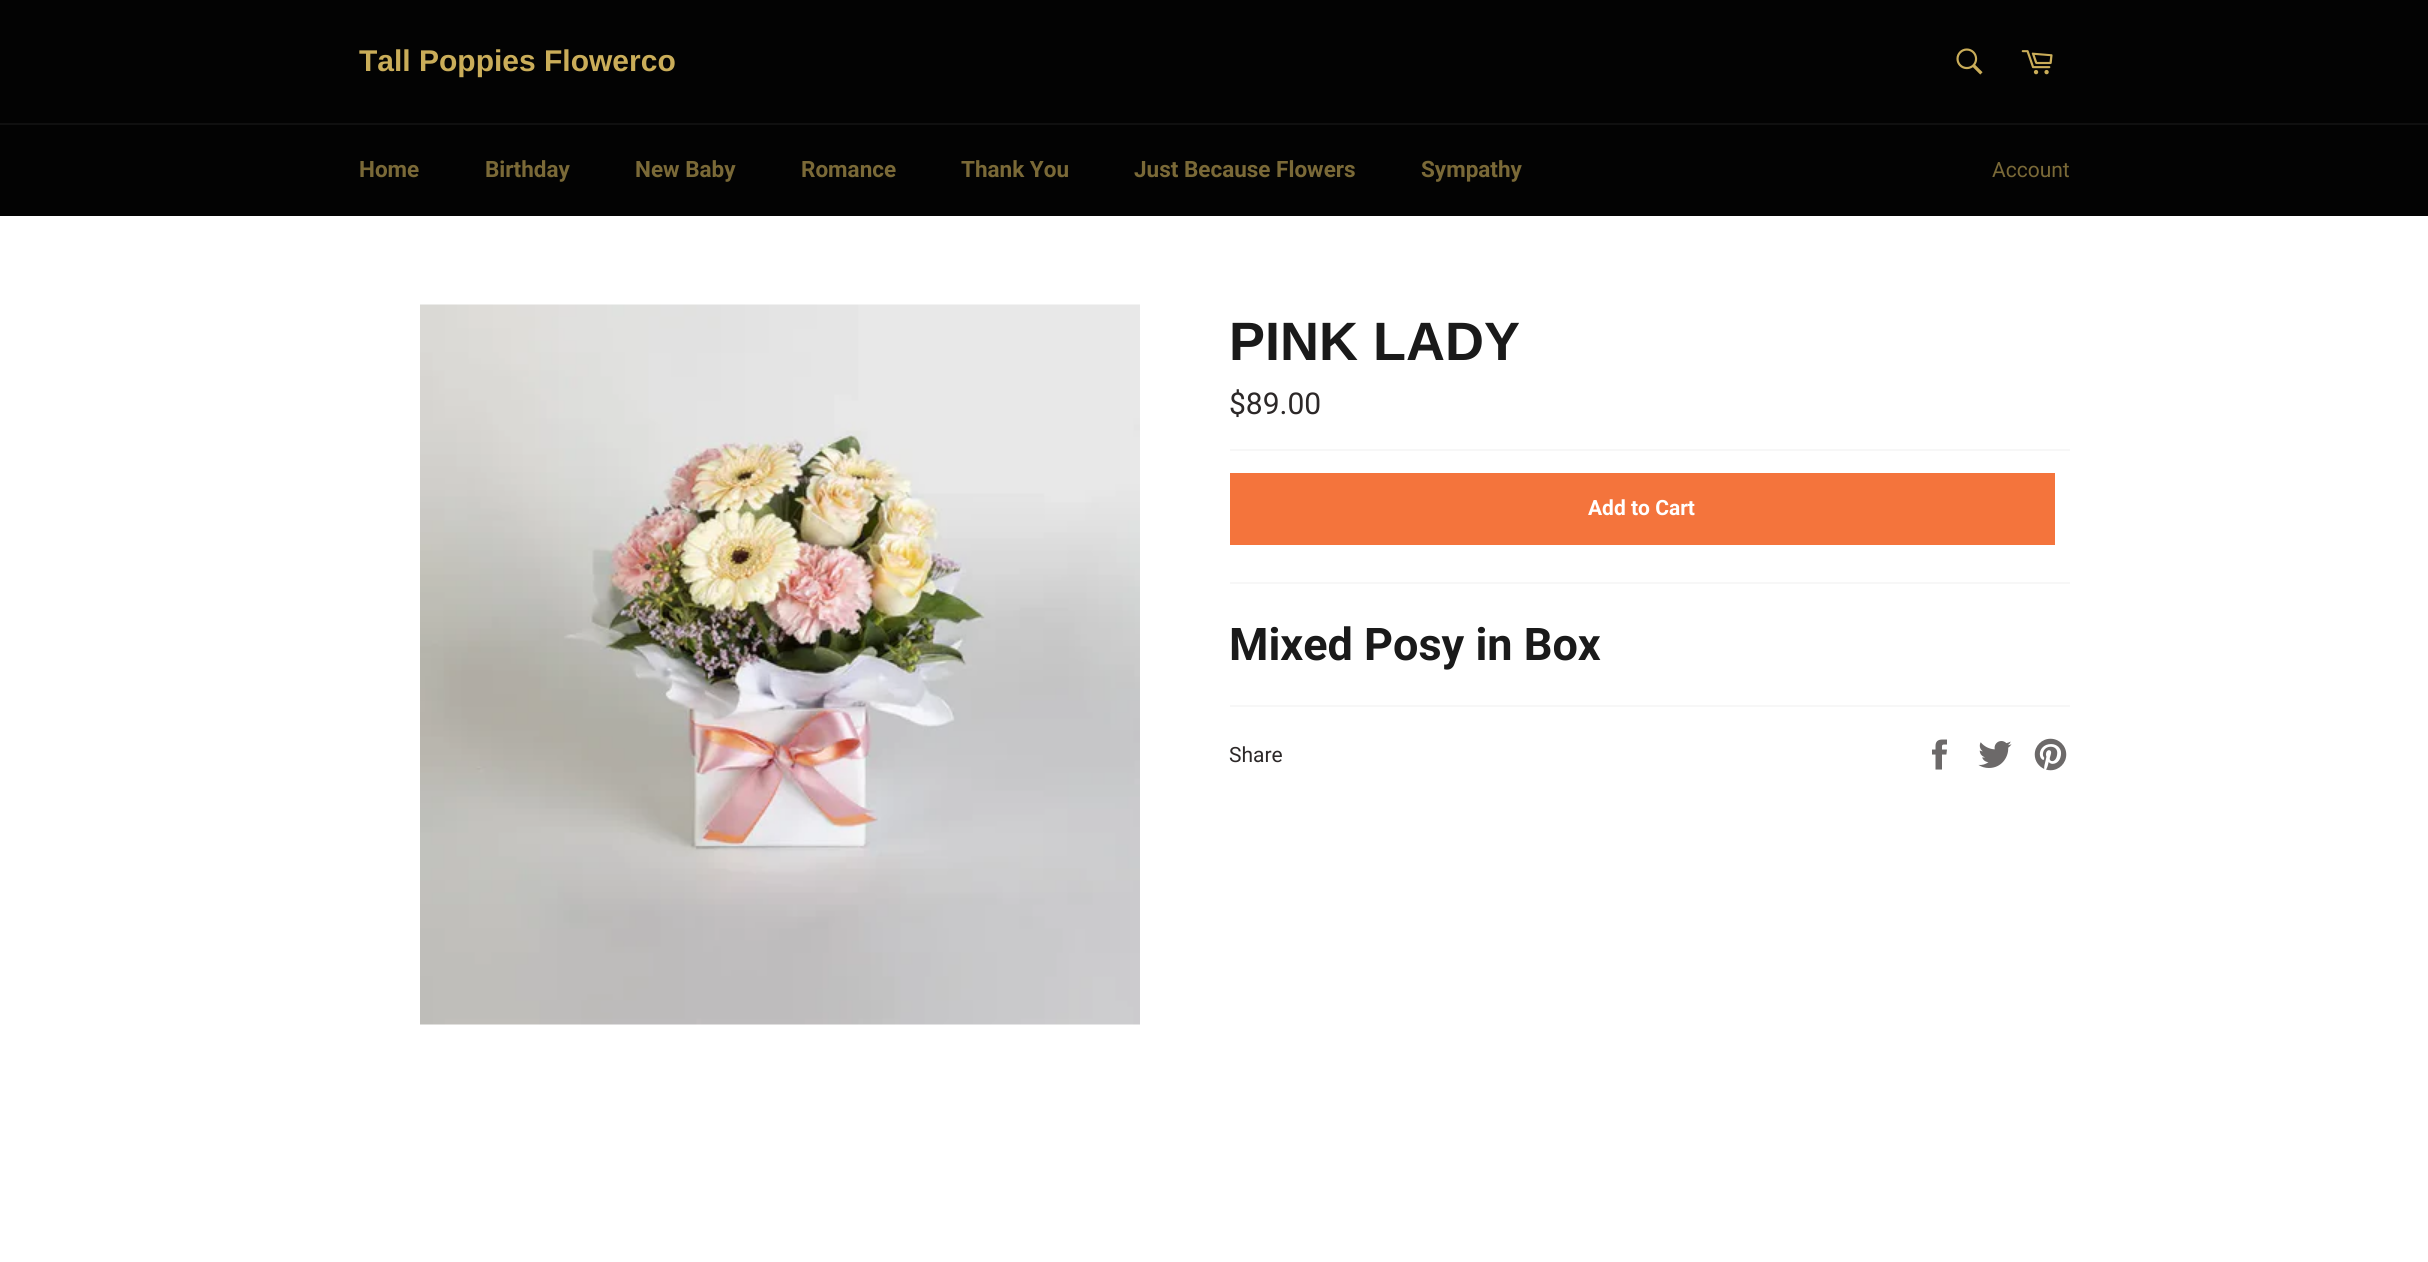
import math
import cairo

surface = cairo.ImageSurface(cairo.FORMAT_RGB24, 2428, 1262)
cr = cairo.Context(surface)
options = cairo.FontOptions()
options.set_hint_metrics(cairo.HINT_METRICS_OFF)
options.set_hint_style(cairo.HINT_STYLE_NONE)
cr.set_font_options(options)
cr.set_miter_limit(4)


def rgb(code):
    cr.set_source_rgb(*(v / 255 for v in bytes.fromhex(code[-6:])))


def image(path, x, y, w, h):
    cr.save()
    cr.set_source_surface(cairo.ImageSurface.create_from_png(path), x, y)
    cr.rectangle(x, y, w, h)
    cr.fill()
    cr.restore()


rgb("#030303")
cr.paint()
image("img/1.png", 1956, 48, 27, 27)
image("img/2.png", 2021, 50, 32, 25)
rgb("#101010")
cr.rectangle(0, 123, 2428, 2)
cr.fill()
rgb("#ffffff")
cr.rectangle(0, 216, 2428, 1046)
cr.fill()
image("img/3.png", 420, 304, 720, 721)
for x, y, w, h, color in [
    (1230, 449, 840, 2, "#f7f7f7"),
    (1230, 473, 825, 72, "#f4743c"),
    (1230, 582, 840, 2, "#f7f7f7"),
    (1230, 705, 840, 2, "#f7f7f7"),
]:
    rgb(color)
    cr.rectangle(x, y, w, h)
    cr.fill()
image("img/4.png", 1932, 739, 15, 31)
image("img/5.png", 1978, 741, 34, 27)
image("img/6.png", 2034, 738, 33, 33)
cr.select_font_face("Liberation Sans", cairo.FONT_SLANT_NORMAL, cairo.FONT_WEIGHT_BOLD)
cr.set_font_size(30)
rgb("#caad59")
cr.move_to(359, 71)
cr.show_text("Tall Poppies Flowerco")
cr.select_font_face("Roboto", cairo.FONT_SLANT_NORMAL, cairo.FONT_WEIGHT_BOLD)
cr.set_font_size(22.5)
rgb("#7a6937")
for x, y, s in [
    (359, 177, "Home"),
    (485, 177, "Birthday"),
    (635, 177, "New Baby"),
    (801, 177, "Romance"),
    (961, 177, "Thank You"),
    (1134, 177, "Just Because Flowers"),
    (1421, 177, "Sympathy"),
]:
    cr.move_to(x, y)
    cr.show_text(s)
cr.select_font_face("Roboto")
cr.set_font_size(21)
cr.move_to(1992, 177)
cr.show_text("Account")
cr.select_font_face("Liberation Sans", cairo.FONT_SLANT_NORMAL, cairo.FONT_WEIGHT_BOLD)
cr.set_font_size(54)
rgb("#1a1a1a")
cr.move_to(1229, 360)
cr.show_text("PINK LADY")
cr.select_font_face("Roboto")
cr.set_font_size(30)
rgb("#2c2828")
cr.move_to(1229, 414)
cr.show_text("$89.00")
cr.select_font_face("Roboto", cairo.FONT_SLANT_NORMAL, cairo.FONT_WEIGHT_BOLD)
cr.set_font_size(21)
rgb("#ffffff")
cr.move_to(1588, 515)
cr.show_text("Add to Cart")
cr.set_font_size(45)
rgb("#1a1a1a")
cr.move_to(1229, 660)
cr.show_text("Mixed Posy in Box")
cr.select_font_face("Roboto")
cr.set_font_size(21)
rgb("#2c2828")
cr.move_to(1229, 762)
cr.show_text("Share")
surface.write_to_png("page.png")
